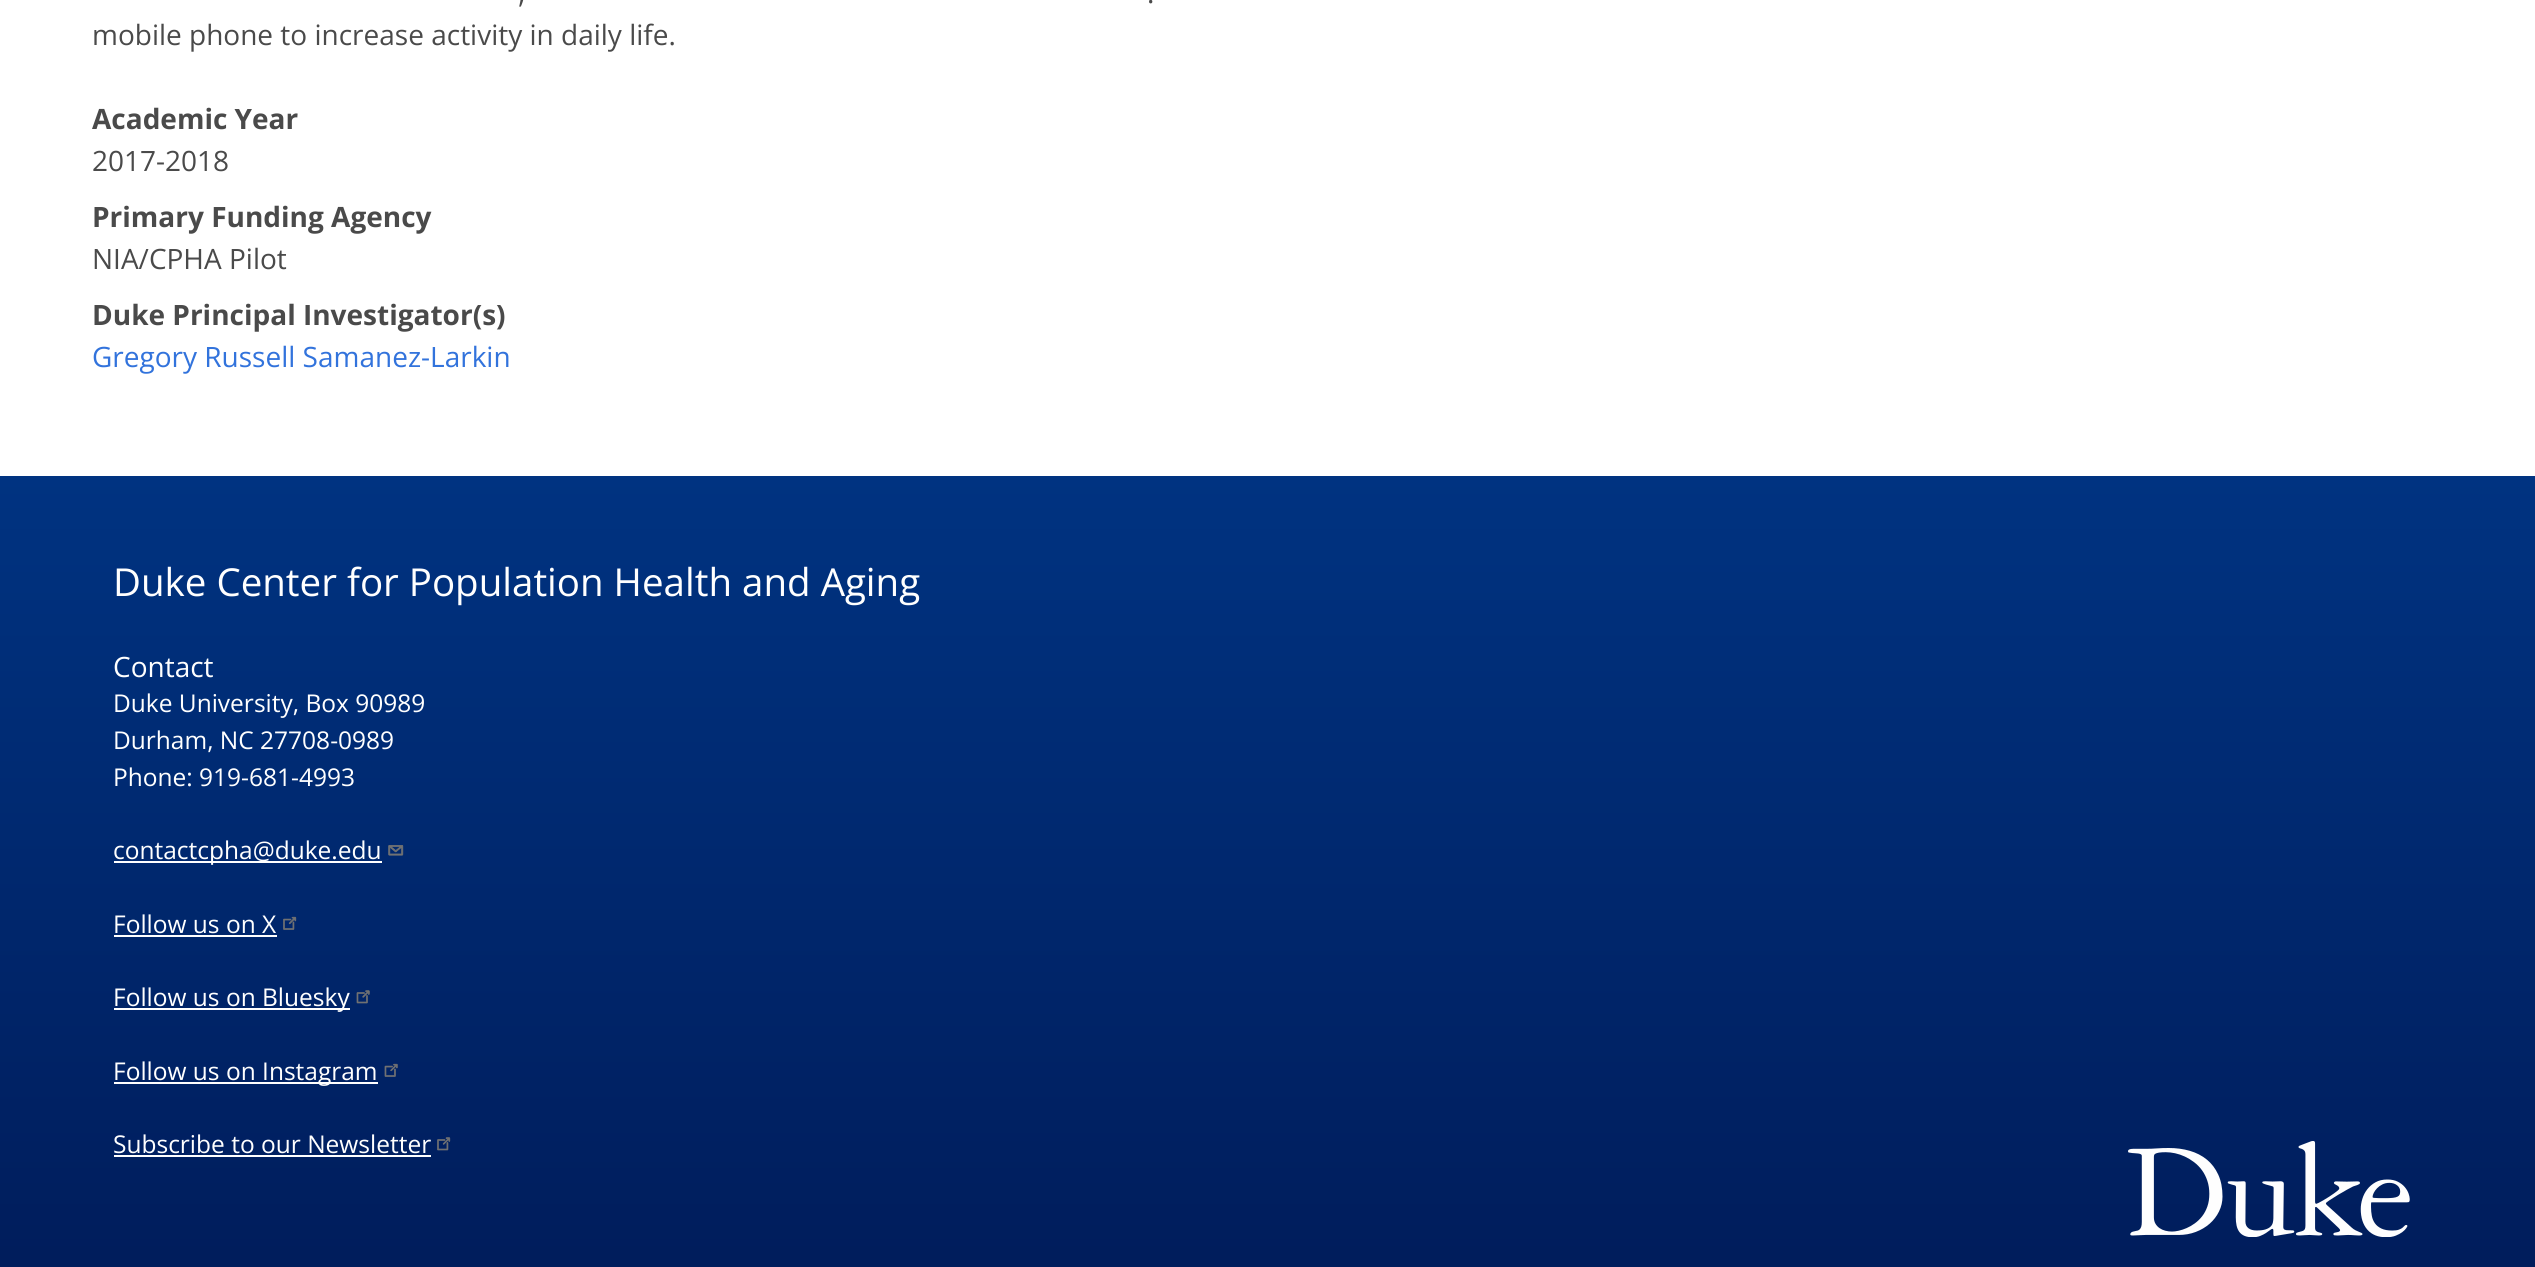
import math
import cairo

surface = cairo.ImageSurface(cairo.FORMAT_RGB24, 2535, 1267)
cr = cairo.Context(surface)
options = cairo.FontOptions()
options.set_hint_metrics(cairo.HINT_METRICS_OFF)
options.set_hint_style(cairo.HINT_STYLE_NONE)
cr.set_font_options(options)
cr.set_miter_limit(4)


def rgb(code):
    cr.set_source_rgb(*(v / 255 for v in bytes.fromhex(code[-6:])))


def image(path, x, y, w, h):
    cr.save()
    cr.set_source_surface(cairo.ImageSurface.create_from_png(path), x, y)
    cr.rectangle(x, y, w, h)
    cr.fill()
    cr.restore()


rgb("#ffffff")
cr.paint()
gradient = cairo.LinearGradient(1268, 476, 1268, 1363)
gradient.add_color_stop_rgba(0, 0, 0.2, 0.506, 1)
gradient.add_color_stop_rgba(1, 0, 0.102, 0.341, 1)
cr.set_source(gradient)
cr.rectangle(0, 476, 2535, 791)
cr.fill()
rgb("#ffffff")
cr.rectangle(114, 861, 268, 2)
cr.fill()
image("img/1.png", 388, 845, 16, 11)
cr.rectangle(114, 935, 163, 2)
cr.fill()
image("img/2.png", 283, 916, 14, 14)
cr.rectangle(114, 1008, 236, 2)
cr.fill()
image("img/3.png", 356, 990, 14, 14)
cr.rectangle(114, 1082, 264, 2)
cr.fill()
image("img/4.png", 384, 1063, 14, 14)
cr.rectangle(114, 1155, 317, 2)
cr.fill()
image("img/5.png", 437, 1137, 14, 14)
image("img/6.png", 2128, 1141, 282, 96)
cr.select_font_face("Open Sans")
cr.set_font_size(28)
rgb("#4a4a4a")
for x, y, s in [
    (518, 3, ","),
    (1147, 3, "."),
    (92, 45, "mobile phone to increase activity in daily life."),
]:
    cr.move_to(x, y)
    cr.show_text(s)
cr.select_font_face("Open Sans", cairo.FONT_SLANT_NORMAL, cairo.FONT_WEIGHT_BOLD)
cr.move_to(92, 129)
cr.show_text("Academic Year")
cr.select_font_face("Open Sans")
cr.move_to(92, 171)
cr.show_text("2017-2018")
cr.select_font_face("Open Sans", cairo.FONT_SLANT_NORMAL, cairo.FONT_WEIGHT_BOLD)
cr.move_to(92, 227)
cr.show_text("Primary Funding Agency")
cr.select_font_face("Open Sans")
cr.move_to(92, 269)
cr.show_text("NIA/CPHA Pilot")
cr.select_font_face("Open Sans", cairo.FONT_SLANT_NORMAL, cairo.FONT_WEIGHT_BOLD)
cr.move_to(92, 325)
cr.show_text("Duke Principal Investigator(s)")
cr.select_font_face("Open Sans")
rgb("#3273dc")
cr.move_to(92, 367)
cr.show_text("Gregory Russell Samanez-Larkin")
cr.set_font_size(38.5)
rgb("#ffffff")
cr.move_to(113, 596)
cr.show_text("Duke Center for Population Health and Aging")
cr.set_font_size(28)
cr.move_to(113, 677)
cr.show_text("Contact")
cr.set_font_size(24.5)
for x, y, s in [
    (113, 712, "Duke University, Box 90989"),
    (113, 749, "Durham, NC 27708-0989"),
    (113, 786, "Phone: 919-681-4993"),
    (113, 859, "contactcpha@duke.edu"),
    (113, 933, "Follow us on X"),
    (113, 1006, "Follow us on Bluesky"),
    (113, 1080, "Follow us on Instagram"),
    (113, 1153, "Subscribe to our Newsletter"),
]:
    cr.move_to(x, y)
    cr.show_text(s)
surface.write_to_png("page.png")
